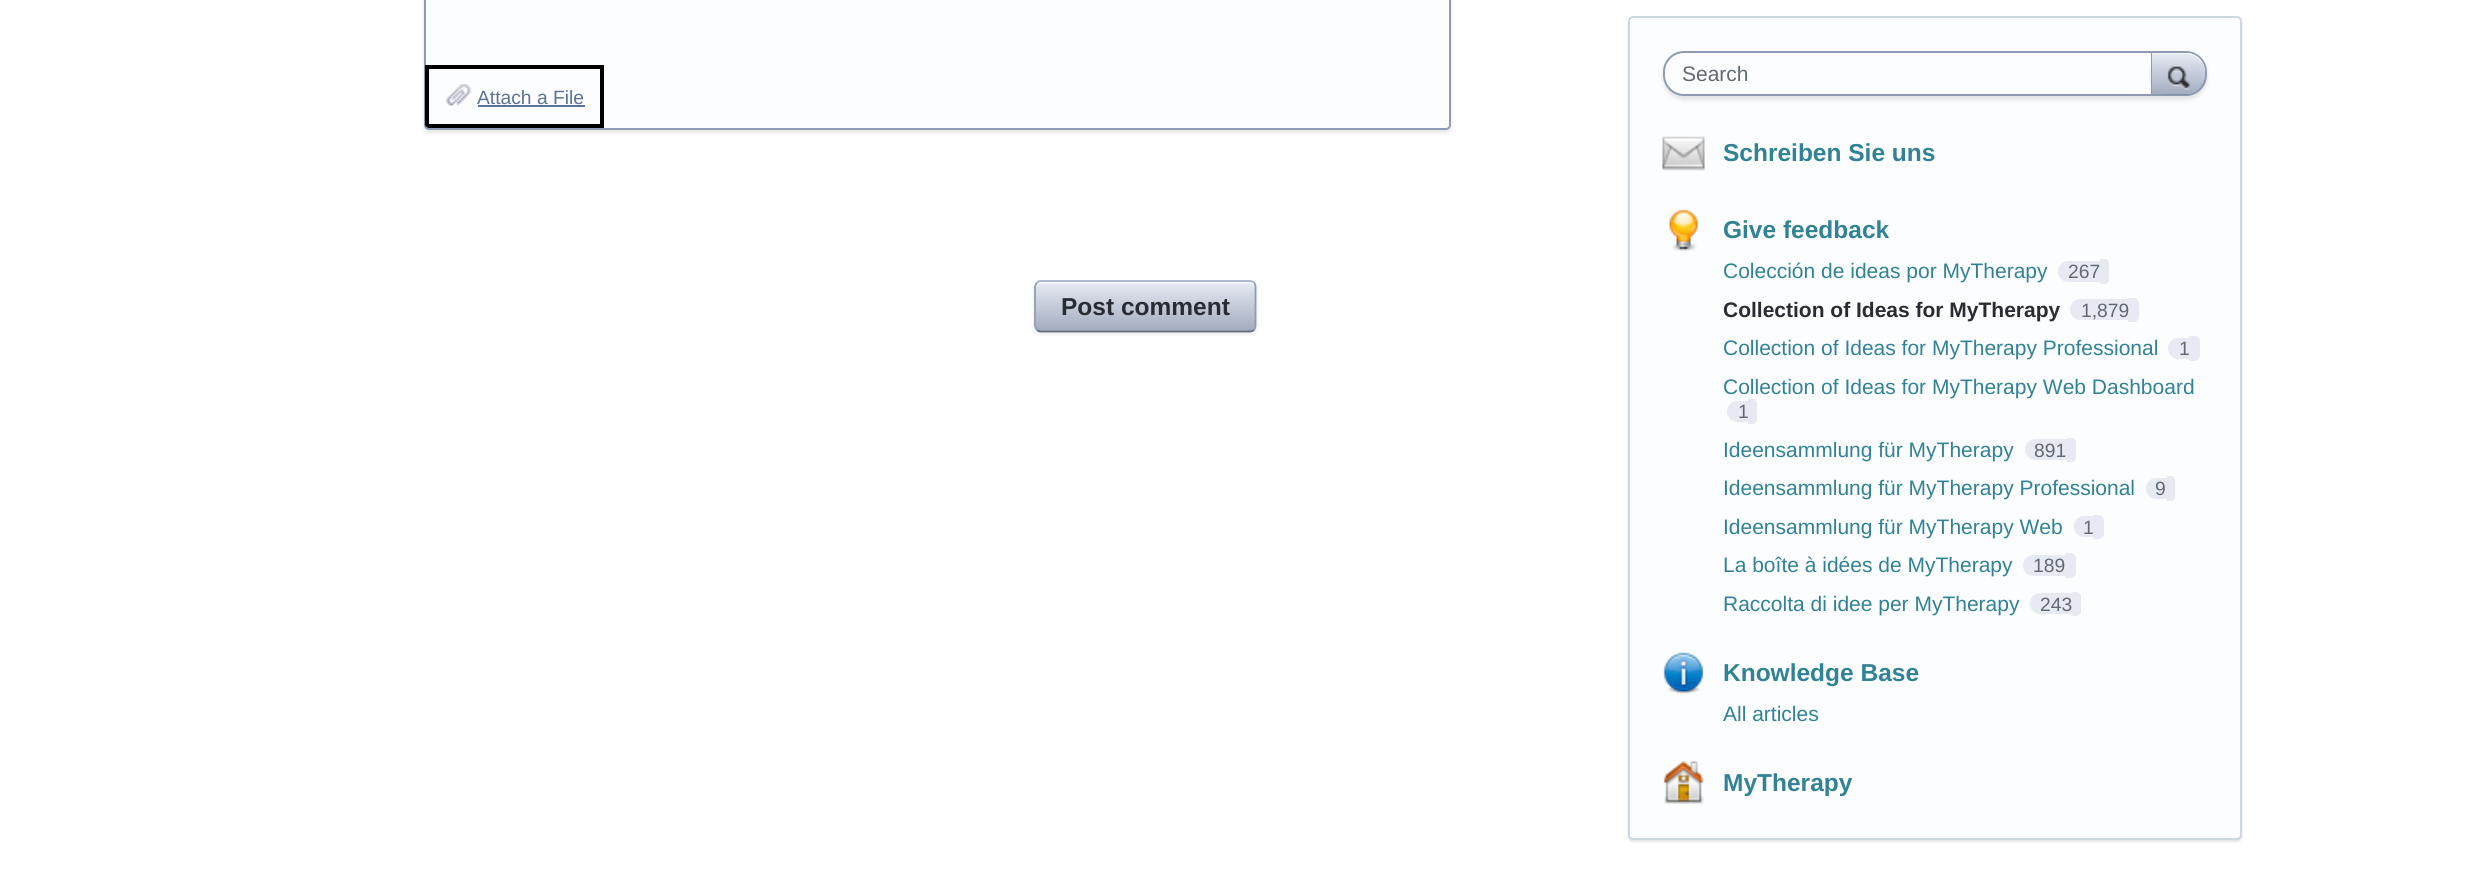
import math
import cairo

surface = cairo.ImageSurface(cairo.FORMAT_RGB24, 2490, 881)
cr = cairo.Context(surface)
options = cairo.FontOptions()
options.set_hint_metrics(cairo.HINT_METRICS_OFF)
options.set_hint_style(cairo.HINT_STYLE_NONE)
cr.set_font_options(options)
cr.set_miter_limit(4)


def rgb(code):
    cr.set_source_rgb(*(v / 255 for v in bytes.fromhex(code[-6:])))


def rrect(x, y, w, h, r):
    cr.new_sub_path()
    for i, (u, v) in enumerate([(x + w - r, y + h - r), (x + r, y + h - r), (x + r, y + r), (x + w - r, y + r)]):
        cr.arc(u, v, r, i * math.pi / 2, (i + 1) * math.pi / 2)
    cr.close_path()


def soft_shadow(x, y, w, h, r, blur, alpha):
    cr.push_group_with_content(cairo.CONTENT_ALPHA)
    cr.set_operator(cairo.OPERATOR_SOURCE)
    for i in range(15, -16, -2):
        e = blur * i / 6
        if min(w, h) + 2 * e > 0:
            cr.set_source_rgba(0, 0, 0, alpha * math.erfc((i - 1) / 8.5) / 2)
            rrect(x - e, y - e, w + 2 * e, h + 2 * e, max(0, min(r + e + blur * .6, min(w, h) / 2 + e)))
            cr.fill()
    cr.mask(cr.pop_group())


def image(path, x, y, w, h):
    cr.save()
    cr.set_source_surface(cairo.ImageSurface.create_from_png(path), x, y)
    cr.rectangle(x, y, w, h)
    cr.fill()
    cr.restore()


rgb("#ffffff")
cr.paint()
rgb("#000000")
soft_shadow(424, -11, 1027, 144, 5, 2, 0.1)
rgb("#fcfdff")
rrect(425, -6, 1025, 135, 4)
cr.fill_preserve()
rgb("#8f9bb3")
cr.stroke()
image("img/1.png", 445, 84, 27, 22)
rgb("#000000")
cr.set_fill_rule(cairo.FILL_RULE_EVEN_ODD)
cr.new_path()
cr.move_to(425, 65)
cr.line_to(425, 124)
cr.curve_to(425, 126, 427, 128, 429, 128)
cr.line_to(604, 128)
cr.line_to(604, 65)
cr.close_path()
cr.move_to(429, 69)
cr.line_to(429, 124)
cr.line_to(600, 124)
cr.line_to(600, 69)
cr.close_path()
cr.fill()
rgb("#5d7298")
cr.rectangle(478, 105, 107, 2)
cr.fill()
rgb("#000000")
soft_shadow(1034, 282, 223, 52, 7, 2, 0.1)
gradient = cairo.LinearGradient(1036, 282, 1036, 331)
gradient.add_color_stop_rgba(0, 0.902, 0.918, 0.949, 1)
gradient.add_color_stop_rgba(1, 0.635, 0.675, 0.749, 1)
cr.set_source(gradient)
rrect(1036, 282, 219, 49, 5)
cr.fill()
cr.set_source_rgba(1, 1, 1, 0.5)
cr.set_fill_rule(cairo.FILL_RULE_WINDING)
cr.new_path()
cr.move_to(1041, 284)
cr.line_to(1250, 284)
cr.curve_to(1252, 284, 1255, 286, 1255, 289)
cr.line_to(1255, 287)
cr.curve_to(1255, 284, 1253, 282, 1250, 282)
cr.line_to(1041, 282)
cr.curve_to(1038, 282, 1036, 284, 1036, 287)
cr.line_to(1036, 289)
cr.curve_to(1036, 286, 1038, 284, 1041, 284)
cr.close_path()
cr.fill()
cr.new_path()
cr.move_to(1037, 282.5)
cr.curve_to(1038, 281.5, 1039.5, 281, 1041, 281)
cr.line_to(1249.5, 281)
cr.curve_to(1251, 281, 1252.5, 281.5, 1254, 282.5)
rgb("#a3b1cc")
cr.set_line_width(1.8)
cr.stroke()
cr.new_path()
cr.move_to(1254, 282.5)
cr.curve_to(1255, 284, 1255.5, 285.5, 1255.5, 287)
cr.line_to(1255.5, 325.5)
cr.curve_to(1255.5, 327, 1255, 328.5, 1254, 330)
rgb("#8f9bb3")
cr.stroke()
cr.new_path()
cr.move_to(1254, 330)
cr.curve_to(1252.5, 331, 1251, 331.5, 1249.5, 331.5)
cr.line_to(1041, 331.5)
cr.curve_to(1039.5, 331.5, 1038, 331, 1037, 330)
rgb("#666f80")
cr.stroke()
cr.new_path()
cr.move_to(1037, 330)
cr.curve_to(1036, 328.5, 1035, 327, 1035, 325.5)
cr.line_to(1035, 287)
cr.curve_to(1035, 285.5, 1036, 284, 1037, 282.5)
rgb("#8f9bb3")
cr.stroke()
rgb("#000000")
soft_shadow(1628, 18, 614, 824, 5, 1, 0.1)
rgb("#fcfdff")
rrect(1629, 17, 612, 822, 4)
cr.fill_preserve()
rgb("#cfd7e6")
cr.set_line_width(2)
cr.stroke()
rgb("#000000")
soft_shadow(1663, 54, 544, 46, 21, 2, 0.1)
rgb("#fcfdff")
rrect(1664, 52, 542, 43, 20)
cr.fill_preserve()
rgb("#8f9bb3")
cr.stroke()
cr.save()
rrect(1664, 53, 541, 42, 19)
cr.clip()
rgb("#000000")
soft_shadow(2151, 53, 56, 43, 21, 2, 0.1)
cr.restore()
gradient = cairo.LinearGradient(2153, 53, 2153, 95)
gradient.add_color_stop_rgba(0, 0.902, 0.918, 0.949, 1)
gradient.add_color_stop_rgba(1, 0.635, 0.675, 0.749, 1)
cr.set_source(gradient)
cr.new_path()
cr.move_to(2205, 74)
cr.line_to(2205, 72)
cr.curve_to(2205, 62, 2196, 53, 2186, 53)
cr.line_to(2152, 53)
cr.line_to(2152, 94)
cr.line_to(2186, 94)
cr.curve_to(2196, 94, 2205, 85, 2205, 74)
cr.close_path()
cr.fill()
cr.set_source_rgba(1, 1, 1, 0.5)
cr.new_path()
cr.move_to(2152, 54)
cr.line_to(2152, 53)
cr.line_to(2190, 53)
cr.curve_to(2200, 55, 2205, 64, 2205, 74)
cr.curve_to(2205, 63, 2196, 54, 2186, 54)
cr.close_path()
cr.fill()
rgb("#8f9bb3")
cr.new_path()
cr.move_to(2200.5, 88)
cr.curve_to(2197, 91.5, 2191.5, 94, 2186, 94)
cr.curve_to(2196, 94, 2205, 85, 2205, 74)
cr.curve_to(2205, 79, 2204, 84, 2200.5, 88)
cr.close_path()
cr.fill()
cr.rectangle(2151, 53, 1, 41)
cr.fill()
image("img/2.png", 2167, 66, 23, 24)
image("img/3.png", 1662, 136, 43, 35)
image("img/4.png", 1669, 209, 29, 42)
rgb("#e7eaf2")
cr.new_path()
cr.move_to(2068.5, 261)
cr.line_to(2100, 261)
cr.line_to(2100, 282)
cr.line_to(2068.5, 282)
cr.curve_to(2062.5, 282, 2058, 277.5, 2058, 271.5)
cr.curve_to(2058, 265.5, 2062.5, 261, 2068.5, 261)
cr.close_path()
cr.fill()
cr.new_path()
cr.move_to(2100, 259)
cr.line_to(2104.5, 259)
cr.curve_to(2107, 259, 2109, 261, 2109, 263.5)
cr.line_to(2109, 279.5)
cr.curve_to(2109, 282, 2107, 284, 2104.5, 284)
cr.line_to(2100, 284)
cr.close_path()
cr.fill()
cr.new_path()
cr.move_to(2080.5, 299)
cr.line_to(2128, 299)
cr.line_to(2128, 320)
cr.line_to(2080.5, 320)
cr.curve_to(2074.5, 320, 2070, 315.5, 2070, 309.5)
cr.curve_to(2070, 303.5, 2074.5, 299, 2080.5, 299)
cr.close_path()
cr.fill()
cr.new_path()
cr.move_to(2128, 298)
cr.line_to(2133.5, 298)
cr.curve_to(2136.5, 298, 2139, 300.5, 2139, 303.5)
cr.line_to(2139, 316.5)
cr.curve_to(2139, 319.5, 2136.5, 322, 2133.5, 322)
cr.line_to(2128, 322)
cr.close_path()
cr.fill()
cr.new_path()
cr.move_to(2178.5, 338)
cr.line_to(2189, 338)
cr.line_to(2189, 359)
cr.line_to(2178.5, 359)
cr.curve_to(2172.5, 359, 2168, 354.5, 2168, 348.5)
cr.curve_to(2168, 342.5, 2172.5, 338, 2178.5, 338)
cr.close_path()
cr.fill()
cr.new_path()
cr.move_to(2189, 336)
cr.line_to(2194.5, 336)
cr.curve_to(2197.5, 336, 2200, 338.5, 2200, 341.5)
cr.line_to(2200, 355.5)
cr.curve_to(2200, 358.5, 2197.5, 361, 2194.5, 361)
cr.line_to(2189, 361)
cr.close_path()
cr.fill()
cr.new_path()
cr.move_to(1737.5, 401)
cr.line_to(1748, 401)
cr.line_to(1748, 422)
cr.line_to(1737.5, 422)
cr.curve_to(1731.5, 422, 1727, 417.5, 1727, 411.5)
cr.curve_to(1727, 405.5, 1731.5, 401, 1737.5, 401)
cr.close_path()
cr.fill()
cr.new_path()
cr.move_to(1748, 399)
cr.line_to(1752.5, 399)
cr.curve_to(1755, 399, 1757, 401, 1757, 403.5)
cr.line_to(1757, 419.5)
cr.curve_to(1757, 422, 1755, 424, 1752.5, 424)
cr.line_to(1748, 424)
cr.close_path()
cr.fill()
cr.new_path()
cr.move_to(2035.5, 439)
cr.line_to(2067, 439)
cr.line_to(2067, 460)
cr.line_to(2035.5, 460)
cr.curve_to(2029.5, 460, 2025, 455.5, 2025, 449.5)
cr.curve_to(2025, 443.5, 2029.5, 439, 2035.5, 439)
cr.close_path()
cr.fill()
cr.new_path()
cr.move_to(2067, 438)
cr.line_to(2071.5, 438)
cr.curve_to(2074, 438, 2076, 440, 2076, 442.5)
cr.line_to(2076, 457.5)
cr.curve_to(2076, 460, 2074, 462, 2071.5, 462)
cr.line_to(2067, 462)
cr.close_path()
cr.fill()
cr.new_path()
cr.move_to(2156.5, 478)
cr.line_to(2167, 478)
cr.line_to(2167, 499)
cr.line_to(2156.5, 499)
cr.curve_to(2150.5, 499, 2146, 494.5, 2146, 488.5)
cr.curve_to(2146, 482.5, 2150.5, 478, 2156.5, 478)
cr.close_path()
cr.fill()
cr.new_path()
cr.move_to(2167, 476)
cr.line_to(2171, 476)
cr.curve_to(2173, 476, 2175, 478, 2175, 480)
cr.line_to(2175, 497)
cr.curve_to(2175, 499, 2173, 501, 2171, 501)
cr.line_to(2167, 501)
cr.close_path()
cr.fill()
cr.new_path()
cr.move_to(2083.5, 516)
cr.line_to(2093, 516)
cr.line_to(2093, 537)
cr.line_to(2083.5, 537)
cr.curve_to(2078.5, 537, 2074, 532.5, 2074, 527.5)
cr.line_to(2074, 525.5)
cr.curve_to(2074, 520.5, 2078.5, 516, 2083.5, 516)
cr.close_path()
cr.fill()
cr.new_path()
cr.move_to(2093, 515)
cr.line_to(2098.5, 515)
cr.curve_to(2101.5, 515, 2104, 517.5, 2104, 520.5)
cr.line_to(2104, 533.5)
cr.curve_to(2104, 536.5, 2101.5, 539, 2098.5, 539)
cr.line_to(2093, 539)
cr.close_path()
cr.fill()
cr.new_path()
cr.move_to(2033.5, 555)
cr.line_to(2065, 555)
cr.line_to(2065, 576)
cr.line_to(2033.5, 576)
cr.curve_to(2027.5, 576, 2023, 571.5, 2023, 565.5)
cr.curve_to(2023, 559.5, 2027.5, 555, 2033.5, 555)
cr.close_path()
cr.fill()
cr.new_path()
cr.move_to(2065, 553)
cr.line_to(2070.5, 553)
cr.curve_to(2073.5, 553, 2076, 555.5, 2076, 558.5)
cr.line_to(2076, 572.5)
cr.curve_to(2076, 575.5, 2073.5, 578, 2070.5, 578)
cr.line_to(2065, 578)
cr.close_path()
cr.fill()
cr.new_path()
cr.move_to(2040.5, 593)
cr.line_to(2072, 593)
cr.line_to(2072, 614)
cr.line_to(2040.5, 614)
cr.curve_to(2034.5, 614, 2030, 609.5, 2030, 603.5)
cr.curve_to(2030, 597.5, 2034.5, 593, 2040.5, 593)
cr.close_path()
cr.fill()
cr.new_path()
cr.move_to(2072, 592)
cr.line_to(2076.5, 592)
cr.curve_to(2079, 592, 2081, 594, 2081, 596.5)
cr.line_to(2081, 611.5)
cr.curve_to(2081, 614, 2079, 616, 2076.5, 616)
cr.line_to(2072, 616)
cr.close_path()
cr.fill()
image("img/5.png", 1663, 652, 41, 42)
image("img/6.png", 1663, 761, 41, 43)
cr.select_font_face("Liberation Sans")
cr.set_font_size(19.25)
rgb("#5d7298")
cr.move_to(477, 104)
cr.show_text("Attach a File")
cr.select_font_face("Liberation Sans", cairo.FONT_SLANT_NORMAL, cairo.FONT_WEIGHT_BOLD)
cr.set_font_size(24.5)
rgb("#292c33")
cr.move_to(1061, 315)
cr.show_text("Post comment")
cr.select_font_face("Liberation Sans")
cr.set_font_size(21)
rgb("#616973")
cr.move_to(1682, 81)
cr.show_text("Search")
cr.select_font_face("Liberation Sans", cairo.FONT_SLANT_NORMAL, cairo.FONT_WEIGHT_BOLD)
cr.set_font_size(24.5)
rgb("#318294")
cr.move_to(1723, 161)
cr.show_text("Schreiben Sie uns")
cr.move_to(1723, 238)
cr.show_text("Give feedback")
cr.select_font_face("Liberation Sans")
cr.set_font_size(21)
cr.move_to(1723, 278)
cr.show_text("Colección de ideas por MyTherapy")
cr.set_font_size(19.25)
rgb("#616973")
cr.move_to(2068, 278)
cr.show_text("267")
cr.select_font_face("Liberation Sans", cairo.FONT_SLANT_NORMAL, cairo.FONT_WEIGHT_BOLD)
cr.set_font_size(21)
rgb("#292c33")
cr.move_to(1723, 317)
cr.show_text("Collection of Ideas for MyTherapy")
cr.select_font_face("Liberation Sans")
cr.set_font_size(19.25)
rgb("#616973")
cr.move_to(2081, 317)
cr.show_text("1,879")
cr.set_font_size(21)
rgb("#318294")
cr.move_to(1723, 355)
cr.show_text("Collection of Ideas for MyTherapy Professional")
cr.set_font_size(19.25)
rgb("#616973")
cr.move_to(2179, 355)
cr.show_text("1")
cr.set_font_size(21)
rgb("#318294")
cr.move_to(1723, 394)
cr.show_text("Collection of Ideas for MyTherapy Web Dashboard")
cr.set_font_size(19.25)
rgb("#616973")
cr.move_to(1738, 418)
cr.show_text("1")
cr.set_font_size(21)
rgb("#318294")
cr.move_to(1723, 457)
cr.show_text("Ideensammlung für MyTherapy")
cr.set_font_size(19.25)
rgb("#616973")
cr.move_to(2034, 457)
cr.show_text("891")
cr.set_font_size(21)
rgb("#318294")
cr.move_to(1723, 495)
cr.show_text("Ideensammlung für MyTherapy Professional")
cr.set_font_size(19.25)
rgb("#616973")
cr.move_to(2155, 495)
cr.show_text("9")
cr.set_font_size(21)
rgb("#318294")
cr.move_to(1723, 534)
cr.show_text("Ideensammlung für MyTherapy Web")
cr.set_font_size(19.25)
rgb("#616973")
cr.move_to(2083, 534)
cr.show_text("1")
cr.set_font_size(21)
rgb("#318294")
cr.move_to(1723, 572)
cr.show_text("La boîte à idées de MyTherapy")
cr.set_font_size(19.25)
rgb("#616973")
cr.move_to(2033, 572)
cr.show_text("189")
cr.set_font_size(21)
rgb("#318294")
cr.move_to(1723, 611)
cr.show_text("Raccolta di idee per MyTherapy")
cr.set_font_size(19.25)
rgb("#616973")
cr.move_to(2040, 611)
cr.show_text("243")
cr.select_font_face("Liberation Sans", cairo.FONT_SLANT_NORMAL, cairo.FONT_WEIGHT_BOLD)
cr.set_font_size(24.5)
rgb("#318294")
cr.move_to(1723, 681)
cr.show_text("Knowledge Base")
cr.select_font_face("Liberation Sans")
cr.set_font_size(21)
cr.move_to(1723, 721)
cr.show_text("All articles")
cr.select_font_face("Liberation Sans", cairo.FONT_SLANT_NORMAL, cairo.FONT_WEIGHT_BOLD)
cr.set_font_size(24.5)
cr.move_to(1723, 791)
cr.show_text("MyTherapy")
surface.write_to_png("page.png")
